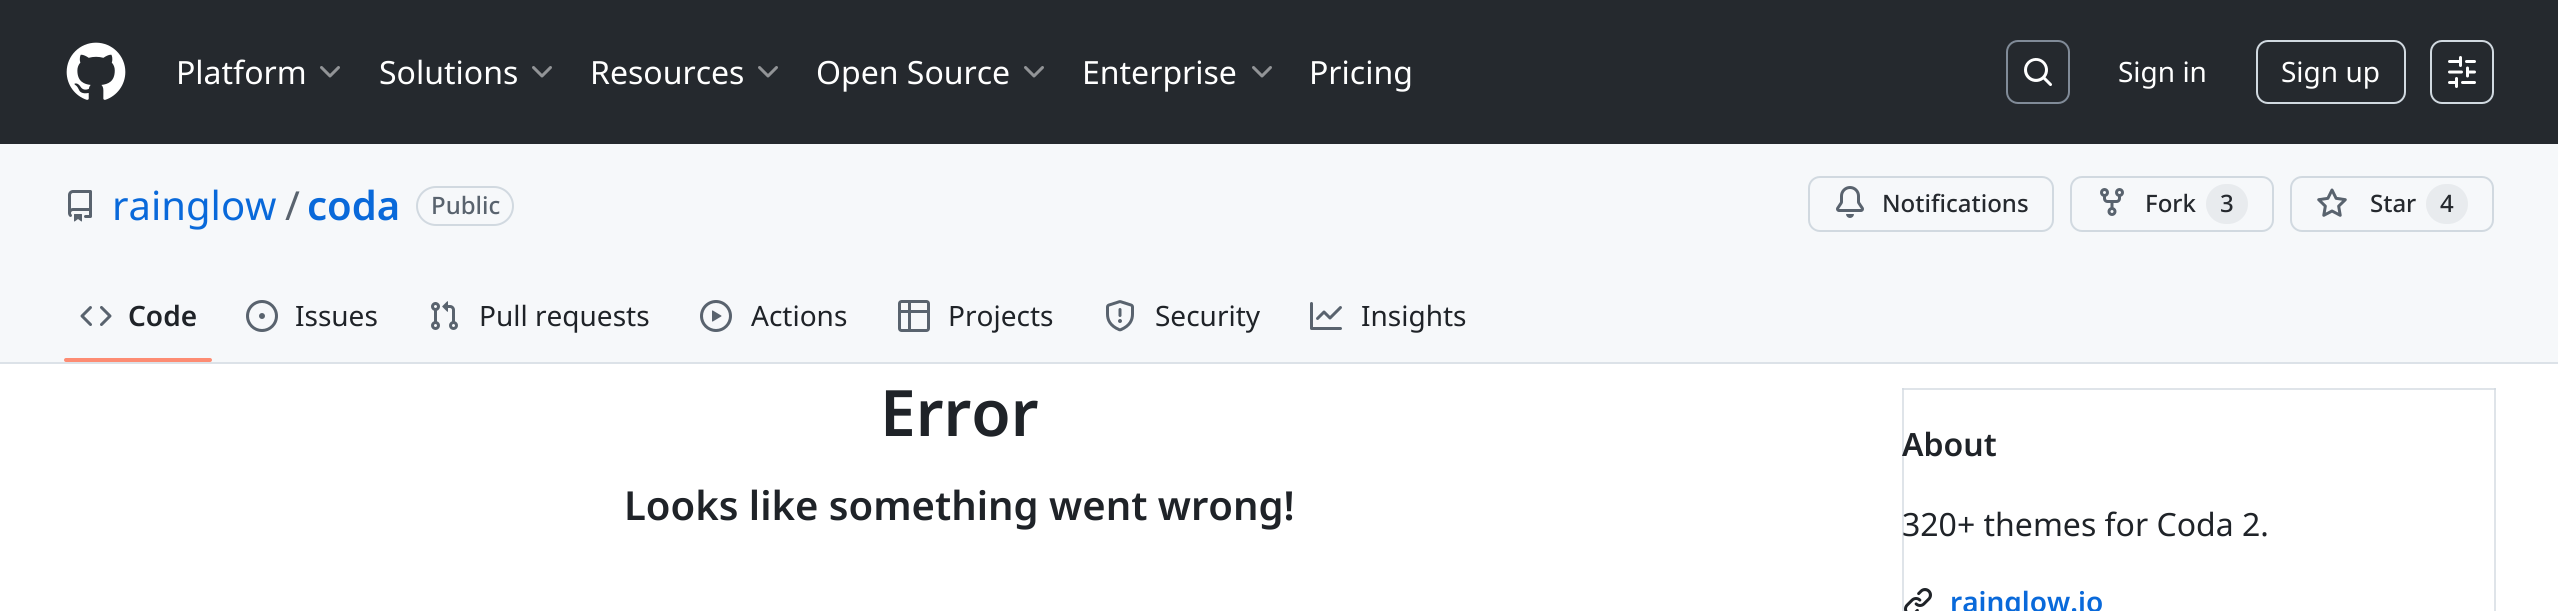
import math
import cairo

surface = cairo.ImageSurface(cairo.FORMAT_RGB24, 2558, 611)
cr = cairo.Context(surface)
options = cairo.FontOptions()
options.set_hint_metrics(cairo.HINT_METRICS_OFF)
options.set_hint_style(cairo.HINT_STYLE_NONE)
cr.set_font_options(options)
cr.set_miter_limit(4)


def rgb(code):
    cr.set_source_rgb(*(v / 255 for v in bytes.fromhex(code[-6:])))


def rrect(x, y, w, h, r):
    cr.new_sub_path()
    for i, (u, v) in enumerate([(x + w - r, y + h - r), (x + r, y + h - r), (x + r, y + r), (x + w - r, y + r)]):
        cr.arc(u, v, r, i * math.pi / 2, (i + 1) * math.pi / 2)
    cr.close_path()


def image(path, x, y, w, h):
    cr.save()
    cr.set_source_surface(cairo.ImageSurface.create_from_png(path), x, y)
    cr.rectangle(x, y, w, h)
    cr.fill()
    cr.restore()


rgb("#ffffff")
cr.paint()
for x, y, w, h, color in [
    (1902, 388, 2, 223, "#dfe4e9"),
    (2494, 388, 2, 223, "#dfe4e9"),
    (0, 0, 2558, 144, "#25292e"),
]:
    rgb(color)
    cr.rectangle(x, y, w, h)
    cr.fill()
image("img/1.png", 66, 42, 60, 58)
image("img/2.png", 320, 66, 20, 12)
image("img/2.png", 532, 66, 20, 12)
image("img/2.png", 758, 66, 20, 12)
image("img/2.png", 1024, 66, 20, 12)
image("img/2.png", 1252, 66, 20, 12)
rrect(2007, 41, 62, 62, 11)
rgb("#818b98")
cr.stroke()
image("img/3.png", 2024, 58, 28, 28)
rrect(2257, 41, 148, 62, 11)
rgb("#d1d9e0")
cr.stroke()
rrect(2431, 41, 62, 62, 11)
cr.stroke()
image("img/4.png", 2448, 56, 28, 32)
rgb("#f6f8fa")
cr.rectangle(0, 144, 2558, 218)
cr.fill()
image("img/5.png", 68, 190, 24, 32)
rrect(417, 187, 96, 38, 19)
rgb("#d1d9e0")
cr.stroke()
rrect(1809, 177, 244, 54, 11)
cr.stroke()
image("img/6.png", 1836, 186, 28, 32)
rrect(2071, 177, 202, 54, 11)
cr.stroke()
image("img/7.png", 2100, 188, 24, 28)
rgb("#e8ebee")
rrect(2206, 184, 42, 40, 20)
cr.fill()
rrect(2291, 177, 202, 54, 11)
rgb("#d1d9e0")
cr.stroke()
image("img/8.png", 2317, 188, 30, 29)
rgb("#e8ebee")
rrect(2426, 184, 42, 40, 20)
cr.fill()
rgb("#dce2e8")
cr.rectangle(0, 362, 2558, 2)
cr.fill()
image("img/9.png", 80, 306, 32, 20)
rgb("#fd8c73")
rrect(64, 358, 148, 4, 2)
cr.fill()
image("img/10.png", 246, 300, 32, 32)
image("img/11.png", 431, 301, 27, 29)
image("img/12.png", 700, 300, 32, 32)
image("img/13.png", 898, 300, 32, 32)
image("img/14.png", 1106, 300, 28, 32)
image("img/15.png", 1310, 302, 32, 28)
for x, y, w, h, color in [
    (1902, 388, 594, 2, "#dfe4e9"),
    (1902, 388, 2, 2, "#d5dce3"),
    (2494, 388, 2, 2, "#d5dce3"),
]:
    rgb(color)
    cr.rectangle(x, y, w, h)
    cr.fill()
image("img/16.png", 1904, 588, 28, 23)
cr.select_font_face("Noto Sans")
cr.set_font_size(32)
rgb("#ffffff")
for x, y, s in [
    (176, 84, "Platform"),
    (379, 84, "Solutions"),
    (590, 84, "Resources"),
    (816, 84, "Open Source"),
    (1082, 84, "Enterprise"),
    (1309, 84, "Pricing"),
]:
    cr.move_to(x, y)
    cr.show_text(s)
cr.set_font_size(28)
cr.move_to(2118, 82)
cr.show_text("Sign in")
cr.move_to(2281, 82)
cr.show_text("Sign up")
cr.set_font_size(40)
rgb("#0969da")
cr.move_to(112, 220)
cr.show_text("rainglow")
rgb("#59636e")
cr.move_to(285, 220)
cr.show_text("/")
cr.select_font_face("Noto Sans SemiBold")
rgb("#0969da")
cr.move_to(307, 220)
cr.show_text("coda")
cr.select_font_face("Noto Sans Medium")
cr.set_font_size(24)
rgb("#59636e")
cr.move_to(431, 214)
cr.show_text("Public")
rgb("#25292e")
for x, y, s in [
    (1882, 212, "Notifications"),
    (2145, 212, "Fork"),
    (2220, 212, "3"),
    (2370, 212, "Star"),
    (2440, 212, "4"),
]:
    cr.move_to(x, y)
    cr.show_text(s)
cr.select_font_face("Noto Sans SemiBold")
cr.set_font_size(28)
rgb("#1f2328")
cr.move_to(128, 326)
cr.show_text("Code")
cr.select_font_face("Noto Sans")
for x, y, s in [
    (295, 326, "Issues"),
    (479, 326, "Pull requests"),
    (751, 326, "Actions"),
    (948, 326, "Projects"),
    (1155, 326, "Security"),
    (1361, 326, "Insights"),
]:
    cr.move_to(x, y)
    cr.show_text(s)
cr.select_font_face("Noto Sans SemiBold")
cr.set_font_size(64)
cr.move_to(880, 436)
cr.show_text("Error")
cr.set_font_size(40)
cr.move_to(624, 520)
cr.show_text("Looks like something went wrong!")
cr.set_font_size(32)
cr.move_to(1902, 456)
cr.show_text("About")
cr.select_font_face("Noto Sans")
cr.move_to(1902, 536)
cr.show_text("320+ themes for Coda 2.")
cr.select_font_face("Noto Sans SemiBold")
cr.set_font_size(28)
rgb("#0969da")
cr.move_to(1950, 612)
cr.show_text("rainglow.io")
surface.write_to_png("page.png")
